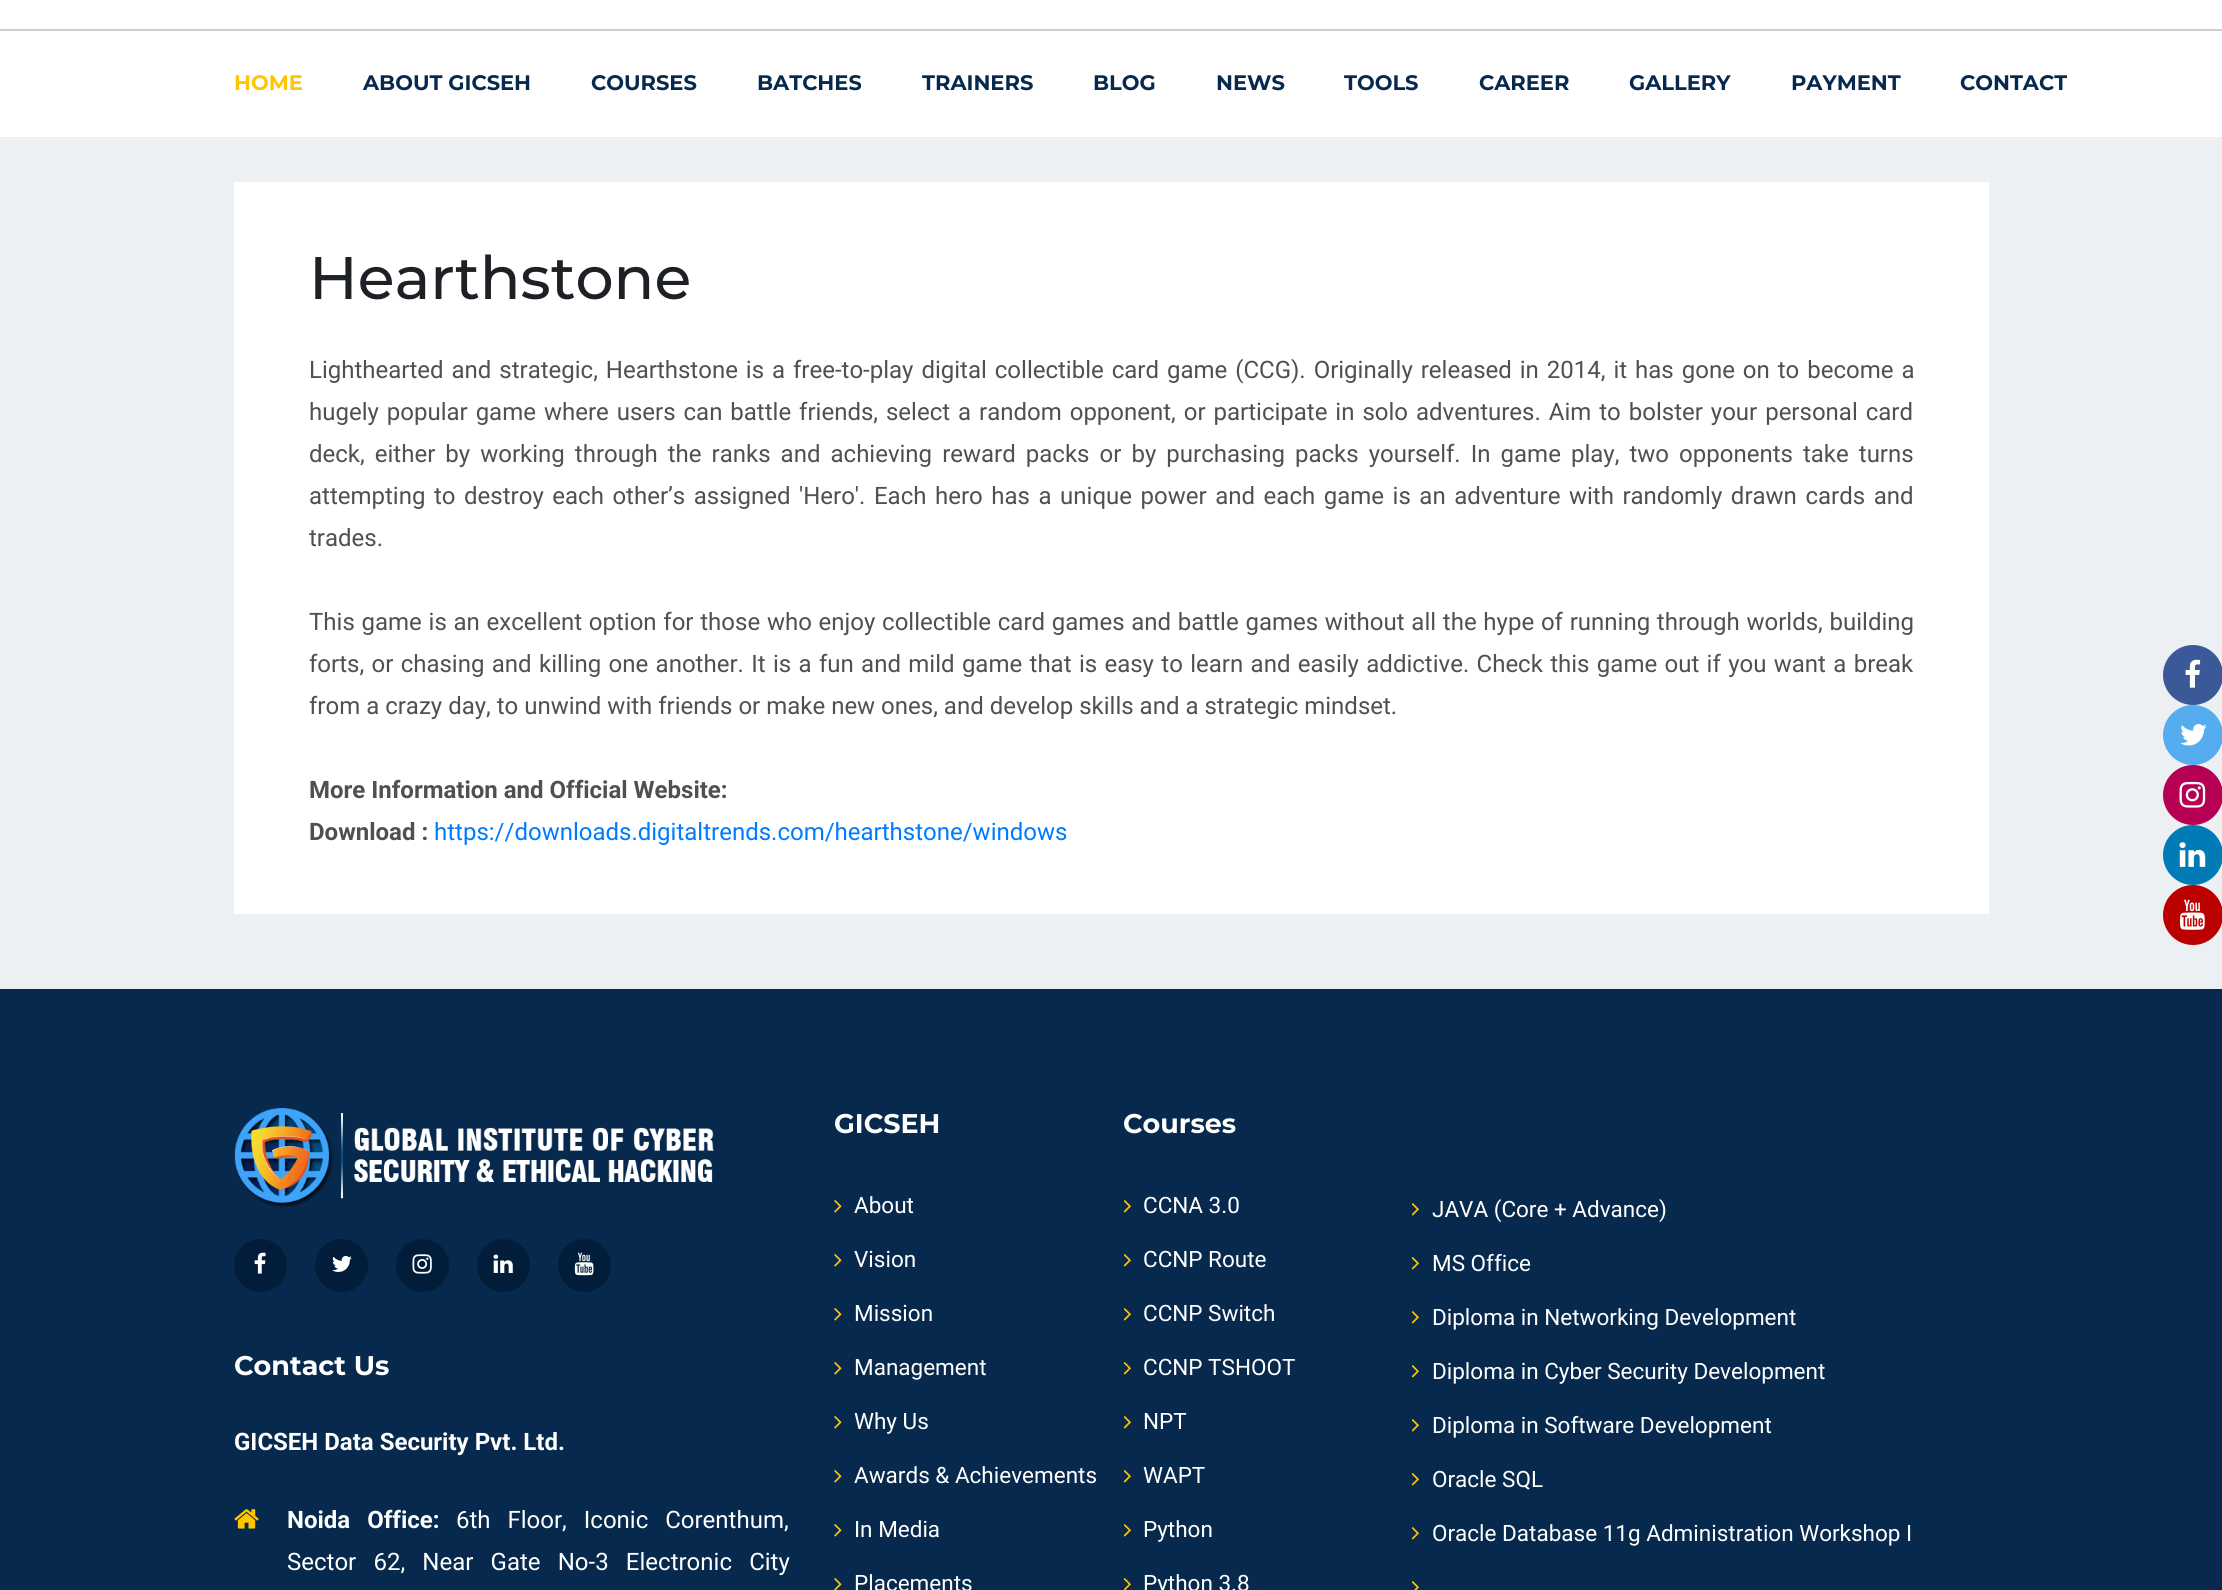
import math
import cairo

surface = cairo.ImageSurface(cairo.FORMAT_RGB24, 2222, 1590)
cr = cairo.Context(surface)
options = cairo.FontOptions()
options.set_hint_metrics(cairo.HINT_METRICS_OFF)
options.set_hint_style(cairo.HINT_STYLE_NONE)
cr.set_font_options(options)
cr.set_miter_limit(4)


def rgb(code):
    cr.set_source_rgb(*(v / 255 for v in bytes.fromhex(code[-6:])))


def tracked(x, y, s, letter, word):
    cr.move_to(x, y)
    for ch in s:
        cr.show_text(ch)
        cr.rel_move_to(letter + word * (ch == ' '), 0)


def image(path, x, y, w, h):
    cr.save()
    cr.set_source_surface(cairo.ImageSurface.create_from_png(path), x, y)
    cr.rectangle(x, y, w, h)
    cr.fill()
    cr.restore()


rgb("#ffffff")
cr.paint()
for x, y, w, h, color in [
    (0, 29, 2222, 2, "#cecece"),
    (0, 137, 2222, 852, "#edf0f2"),
    (234, 182, 1755, 732, "#ffffff"),
]:
    rgb(color)
    cr.rectangle(x, y, w, h)
    cr.fill()
rgb("#3b5998")
cr.arc(2193, 675, 30, 0, 2 * math.pi)
cr.fill()
image("img/1.png", 2185, 659, 16, 29)
rgb("#55acee")
cr.arc(2193, 735, 30, 0, 2 * math.pi)
cr.fill()
image("img/2.png", 2180, 724, 27, 22)
rgb("#b50054")
cr.arc(2193, 795, 30, 0, 2 * math.pi)
cr.fill()
image("img/3.png", 2179, 781, 27, 27)
rgb("#007bb5")
cr.arc(2193, 855, 30, 0, 2 * math.pi)
cr.fill()
image("img/4.png", 2179, 842, 27, 25)
rgb("#bb0000")
cr.arc(2193, 915, 30, 0, 2 * math.pi)
cr.fill()
image("img/5.png", 2179, 899, 26, 31)
rgb("#07294d")
cr.rectangle(0, 989, 2222, 601)
cr.fill()
image("img/6.png", 234, 1108, 480, 100)
rgb("#021d3a")
cr.arc(260.5, 1265.5, 26.5, 0, 2 * math.pi)
cr.fill()
image("img/7.png", 254, 1252, 12, 22)
cr.arc(341.5, 1265.5, 26.5, 0, 2 * math.pi)
cr.fill()
image("img/8.png", 332, 1255, 20, 17)
cr.arc(422.5, 1265.5, 26.5, 0, 2 * math.pi)
cr.fill()
image("img/9.png", 412, 1254, 20, 20)
cr.arc(503.5, 1265.5, 26.5, 0, 2 * math.pi)
cr.fill()
image("img/10.png", 493, 1254, 20, 19)
cr.arc(584.5, 1265.5, 26.5, 0, 2 * math.pi)
cr.fill()
image("img/11.png", 574, 1252, 20, 24)
image("img/12.png", 234, 1509, 25, 20)
image("img/13.png", 834, 1200, 8, 13)
image("img/13.png", 834, 1254, 8, 13)
image("img/13.png", 834, 1308, 8, 13)
image("img/13.png", 834, 1362, 8, 13)
image("img/13.png", 834, 1416, 8, 13)
image("img/13.png", 834, 1470, 8, 13)
image("img/13.png", 834, 1524, 8, 13)
image("img/14.png", 834, 1578, 8, 12)
image("img/15.png", 1124, 1200, 7, 13)
image("img/15.png", 1124, 1254, 7, 13)
image("img/15.png", 1124, 1308, 7, 13)
image("img/15.png", 1124, 1362, 7, 13)
image("img/15.png", 1124, 1416, 7, 13)
image("img/15.png", 1124, 1470, 7, 13)
image("img/15.png", 1124, 1524, 7, 13)
image("img/16.png", 1124, 1578, 7, 12)
image("img/15.png", 1412, 1203, 7, 13)
image("img/15.png", 1412, 1257, 7, 13)
image("img/15.png", 1412, 1311, 7, 13)
image("img/15.png", 1412, 1365, 7, 13)
image("img/15.png", 1412, 1419, 7, 13)
image("img/15.png", 1412, 1473, 7, 13)
image("img/15.png", 1412, 1527, 7, 13)
image("img/17.png", 1412, 1581, 7, 9)
cr.select_font_face("Montserrat", cairo.FONT_SLANT_NORMAL, cairo.FONT_WEIGHT_BOLD)
cr.set_font_size(21)
rgb("#ffc600")
cr.move_to(234, 90)
cr.show_text("HOME")
rgb("#07294d")
for x, y, s in [
    (363, 90, "ABOUT GICSEH"),
    (591, 90, "COURSES"),
    (757, 90, "BATCHES"),
    (922, 90, "TRAINERS"),
    (1093, 90, "BLOG"),
    (1216, 90, "NEWS"),
    (1344, 90, "TOOLS"),
    (1479, 90, "CAREER"),
    (1629, 90, "GALLERY"),
    (1791, 90, "PAYMENT"),
    (1960, 90, "CONTACT"),
]:
    cr.move_to(x, y)
    cr.show_text(s)
cr.select_font_face("Montserrat Medium")
cr.set_font_size(60)
rgb("#1d2025")
cr.move_to(309, 299)
cr.show_text("Hearthstone")
cr.select_font_face("Roboto")
cr.set_font_size(24)
rgb("#505050")
tracked(309, 378, "Lighthearted and strategic, Hearthstone is a free-to-play digital collectible card game (CCG). Originally released in 2014, it has gone on to become a", 0, 2)
tracked(309, 420, "hugely popular game where users can battle friends, select a random opponent, or participate in solo adventures. Aim to bolster your personal card", 0, 2)
tracked(309, 462, "deck, either by working through the ranks and achieving reward packs or by purchasing packs yourself. In game play, two opponents take turns", 0, 4.1)
tracked(309, 504, "attempting to destroy each other’s assigned 'Hero'. Each hero has a unique power and each game is an adventure with randomly drawn cards and", 0, 2.6)
cr.move_to(309, 546)
cr.show_text("trades.")
tracked(309, 630, "This game is an excellent option for those who enjoy collectible card games and battle games without all the hype of running through worlds, building", 0, 0.8)
tracked(309, 672, "forts, or chasing and killing one another. It is a fun and mild game that is easy to learn and easily addictive. Check this game out if you want a break", 0, 1.4)
cr.move_to(309, 714)
cr.show_text("from a crazy day, to unwind with friends or make new ones, and develop skills and a strategic mindset.")
cr.select_font_face("Roboto", cairo.FONT_SLANT_NORMAL, cairo.FONT_WEIGHT_BOLD)
cr.move_to(309, 798)
cr.show_text("More Information and Official Website:")
cr.move_to(309, 840)
cr.show_text("Download :")
cr.select_font_face("Roboto")
rgb("#007bff")
cr.move_to(434, 840)
cr.show_text("https://downloads.digitaltrends.com/hearthstone/windows")
cr.select_font_face("Montserrat", cairo.FONT_SLANT_NORMAL, cairo.FONT_WEIGHT_BOLD)
cr.set_font_size(27)
rgb("#ffffff")
cr.move_to(234, 1375)
cr.show_text("Contact Us")
cr.select_font_face("Roboto", cairo.FONT_SLANT_NORMAL, cairo.FONT_WEIGHT_BOLD)
cr.set_font_size(24)
cr.move_to(234, 1450)
cr.show_text("GICSEH Data Security Pvt. Ltd.")
tracked(287, 1528, "Noida Office:", 0, 11)
cr.select_font_face("Roboto")
tracked(456, 1528, "6th Floor, Iconic Corenthum,", 0, 11)
tracked(287, 1570, "Sector 62, Near Gate No-3 Electronic City", 0, 11.25)
cr.select_font_face("Montserrat", cairo.FONT_SLANT_NORMAL, cairo.FONT_WEIGHT_BOLD)
cr.set_font_size(27)
cr.move_to(834, 1133)
cr.show_text("GICSEH")
cr.select_font_face("Roboto")
cr.set_font_size(22.5)
for x, y, s in [
    (854, 1213, "About"),
    (854, 1267, "Vision"),
    (854, 1321, "Mission"),
    (854, 1375, "Management"),
    (854, 1429, "Why Us"),
    (854, 1483, "Awards & Achievements"),
    (854, 1537, "In Media"),
    (854, 1591, "Placements"),
]:
    cr.move_to(x, y)
    cr.show_text(s)
cr.save()
cr.rectangle(1124, 1109, 288, 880)
cr.clip()
cr.select_font_face("Montserrat", cairo.FONT_SLANT_NORMAL, cairo.FONT_WEIGHT_BOLD)
cr.set_font_size(27)
cr.move_to(1123, 1133)
cr.show_text("Courses")
cr.restore()
for x, y, s in [
    (1143, 1213, "CCNA 3.0"),
    (1143, 1267, "CCNP Route"),
    (1143, 1321, "CCNP Switch"),
    (1143, 1375, "CCNP TSHOOT"),
    (1143, 1429, "NPT"),
    (1143, 1483, "WAPT"),
    (1143, 1537, "Python"),
    (1143, 1591, "Python 3.8"),
    (1432, 1217, "JAVA (Core + Advance)"),
    (1432, 1271, "MS Office"),
    (1432, 1325, "Diploma in Networking Development"),
    (1432, 1379, "Diploma in Cyber Security Development"),
    (1432, 1433, "Diploma in Software Development"),
    (1432, 1487, "Oracle SQL"),
    (1432, 1541, "Oracle Database 11g Administration Workshop I"),
]:
    cr.move_to(x, y)
    cr.show_text(s)
surface.write_to_png("page.png")
